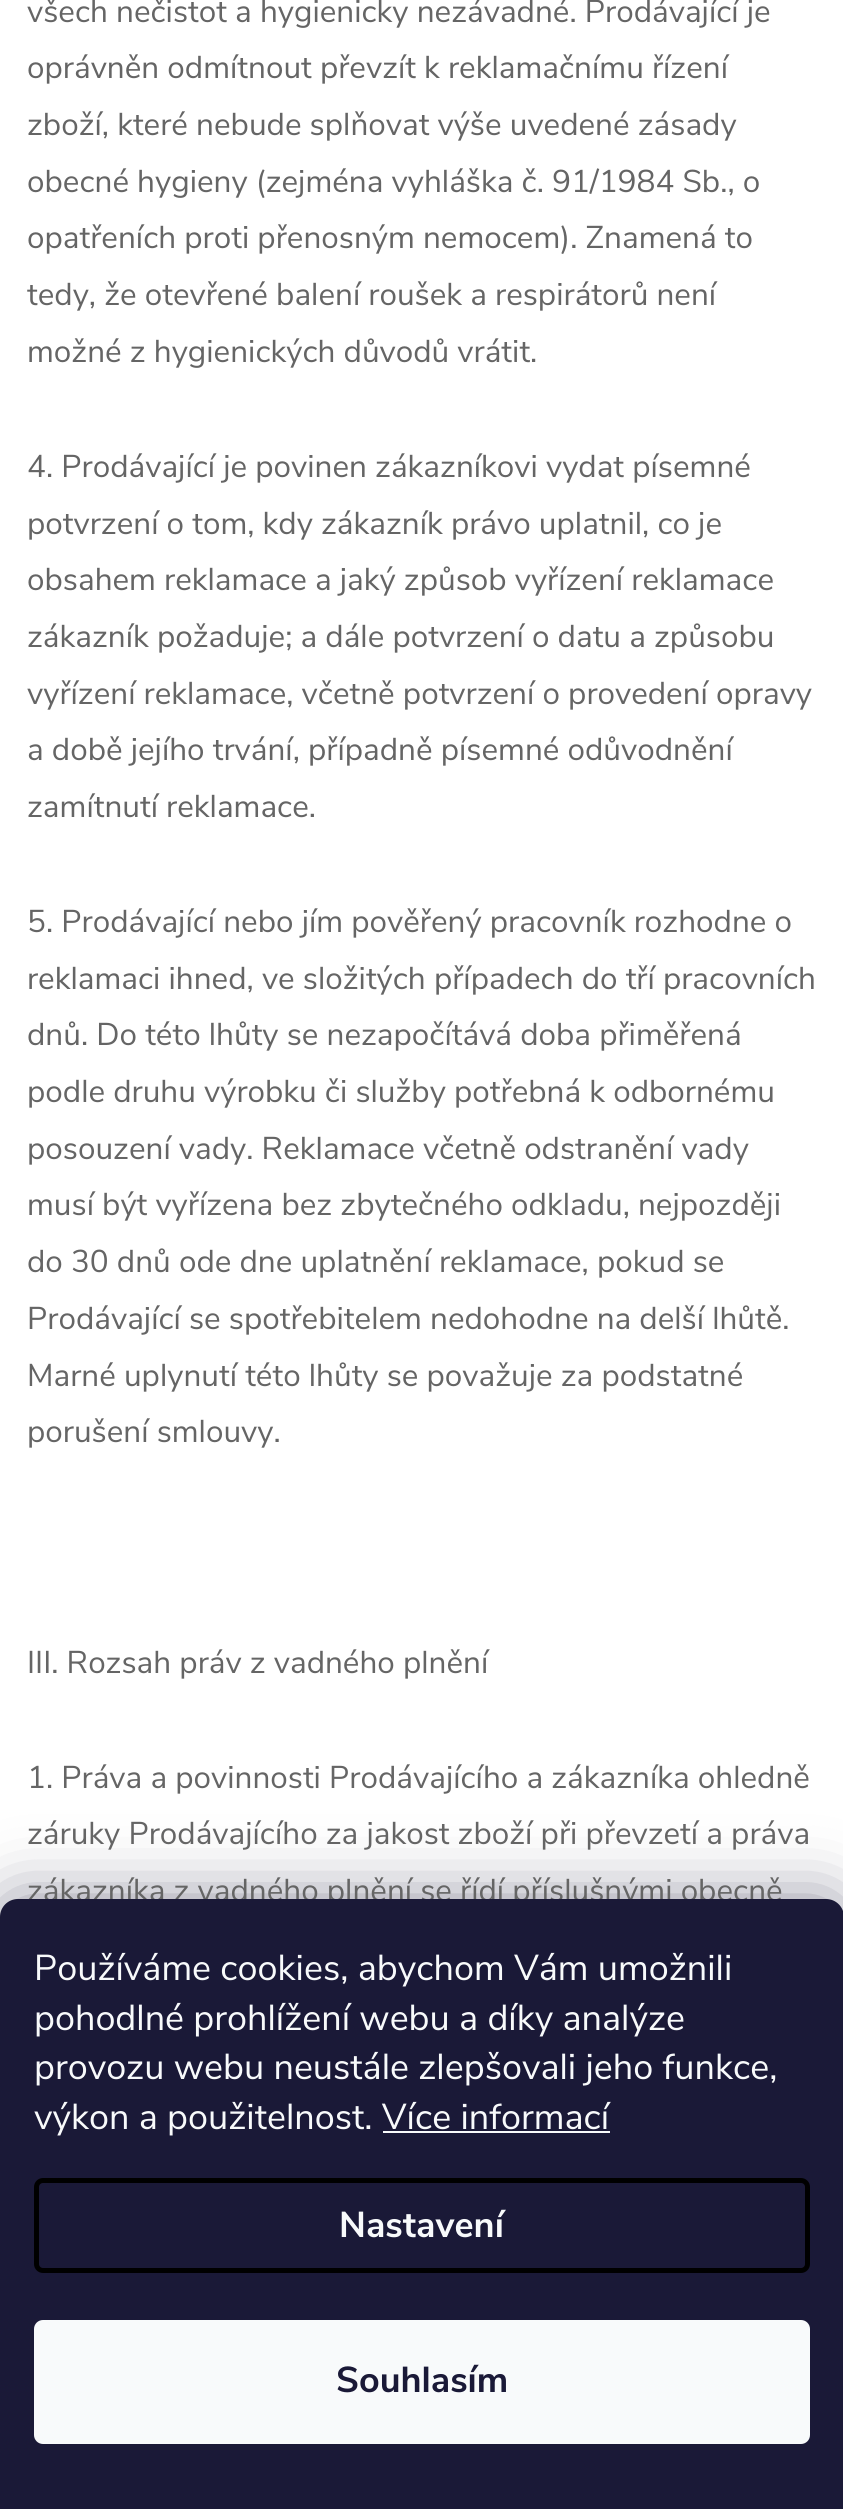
import math
import cairo

surface = cairo.ImageSurface(cairo.FORMAT_RGB24, 843, 2509)
cr = cairo.Context(surface)
options = cairo.FontOptions()
options.set_hint_metrics(cairo.HINT_METRICS_OFF)
options.set_hint_style(cairo.HINT_STYLE_NONE)
cr.set_font_options(options)
cr.set_miter_limit(4)


def rgb(code):
    cr.set_source_rgb(*(v / 255 for v in bytes.fromhex(code[-6:])))


def rrect(x, y, w, h, r):
    cr.new_sub_path()
    for i, (u, v) in enumerate([(x + w - r, y + h - r), (x + r, y + h - r), (x + r, y + r), (x + w - r, y + r)]):
        cr.arc(u, v, r, i * math.pi / 2, (i + 1) * math.pi / 2)
    cr.close_path()


def soft_shadow(x, y, w, h, r, blur, alpha):
    cr.push_group_with_content(cairo.CONTENT_ALPHA)
    cr.set_operator(cairo.OPERATOR_SOURCE)
    for i in range(15, -16, -2):
        e = blur * i / 6
        if min(w, h) + 2 * e > 0:
            cr.set_source_rgba(0, 0, 0, alpha * math.erfc((i - 1) / 8.5) / 2)
            rrect(x - e, y - e, w + 2 * e, h + 2 * e, max(0, min(r + e + blur * .6, min(w, h) / 2 + e)))
            cr.fill()
    cr.mask(cr.pop_group())


rgb("#ffffff")
cr.paint()
rgb("#1b1939")
soft_shadow(0, 1899, 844, 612, 18, 34, 0.5)
cr.select_font_face("Nunito Sans")
cr.set_font_size(31.5)
rgb("#656565")
for x, y, s in [
    (27, 22, "všech nečistot a hygienicky nezávadné. Prodávající je"),
    (27, 78, "oprávněn odmítnout převzít k reklamačnímu řízení"),
    (27, 135, "zboží, které nebude splňovat výše uvedené zásady"),
    (27, 192, "obecné hygieny (zejména vyhláška č. 91/1984 Sb., o"),
    (27, 248, "opatřeních proti přenosným nemocem). Znamená to"),
    (27, 305, "tedy, že otevřené balení roušek a respirátorů není"),
    (27, 362, "možné z hygienických důvodů vrátit."),
    (27, 477, "4. Prodávající je povinen zákazníkovi vydat písemné"),
    (27, 534, "potvrzení o tom, kdy zákazník právo uplatnil, co je"),
    (27, 590, "obsahem reklamace a jaký způsob vyřízení reklamace"),
    (27, 647, "zákazník požaduje; a dále potvrzení o datu a způsobu"),
    (27, 704, "vyřízení reklamace, včetně potvrzení o provedení opravy"),
    (27, 760, "a době jejího trvání, případně písemné odůvodnění"),
    (27, 817, "zamítnutí reklamace."),
    (27, 932, "5. Prodávající nebo jím pověřený pracovník rozhodne o"),
    (27, 989, "reklamaci ihned, ve složitých případech do tří pracovních"),
    (27, 1045, "dnů. Do této lhůty se nezapočítává doba přiměřená"),
    (27, 1102, "podle druhu výrobku či služby potřebná k odbornému"),
    (27, 1159, "posouzení vady. Reklamace včetně odstranění vady"),
    (27, 1215, "musí být vyřízena bez zbytečného odkladu, nejpozději"),
    (27, 1272, "do 30 dnů ode dne uplatnění reklamace, pokud se"),
    (27, 1329, "Prodávající se spotřebitelem nedohodne na delší lhůtě."),
    (27, 1386, "Marné uplynutí této lhůty se považuje za podstatné"),
    (27, 1442, "porušení smlouvy."),
    (27, 1673, "III. Rozsah práv z vadného plnění"),
    (27, 1788, "1. Práva a povinnosti Prodávajícího a zákazníka ohledně"),
    (27, 1844, "záruky Prodávajícího za jakost zboží při převzetí a práva"),
    (27, 1901, "zákazníka z vadného plnění se řídí příslušnými obecně"),
]:
    cr.move_to(x, y)
    cr.show_text(s)
rgb("#1a1937")
cr.new_path()
cr.move_to(18, 1899)
cr.line_to(826, 1899)
cr.curve_to(836, 1899, 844, 1907, 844, 1917)
cr.line_to(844, 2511)
cr.line_to(0, 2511)
cr.line_to(0, 1917)
cr.curve_to(0, 1907, 8, 1899, 18, 1899)
cr.close_path()
cr.fill()
cr.set_font_size(36)
rgb("#f8fafb")
for x, y, s in [
    (34, 1980, "Používáme cookies, abychom Vám umožnili"),
    (34, 2030, "pohodlné prohlížení webu a díky analýze"),
    (34, 2079, "provozu webu neustále zlepšovali jeho funkce,"),
    (34, 2129, "výkon a použitelnost. Více informací"),
]:
    cr.move_to(x, y)
    cr.show_text(s)
cr.rectangle(383, 2131, 227, 2)
cr.fill()
rrect(36.5, 2180.5, 771, 90, 6.5)
rgb("#000000")
cr.set_line_width(5)
cr.stroke()
cr.select_font_face("Nunito Sans", cairo.FONT_SLANT_NORMAL, cairo.FONT_WEIGHT_BOLD)
rgb("#f8fafb")
cr.move_to(339, 2237)
cr.show_text("Nastavení")
rrect(34, 2320, 776, 124, 9)
cr.fill()
rgb("#1a1937")
cr.move_to(336, 2392)
cr.show_text("Souhlasím")
surface.write_to_png("page.png")
